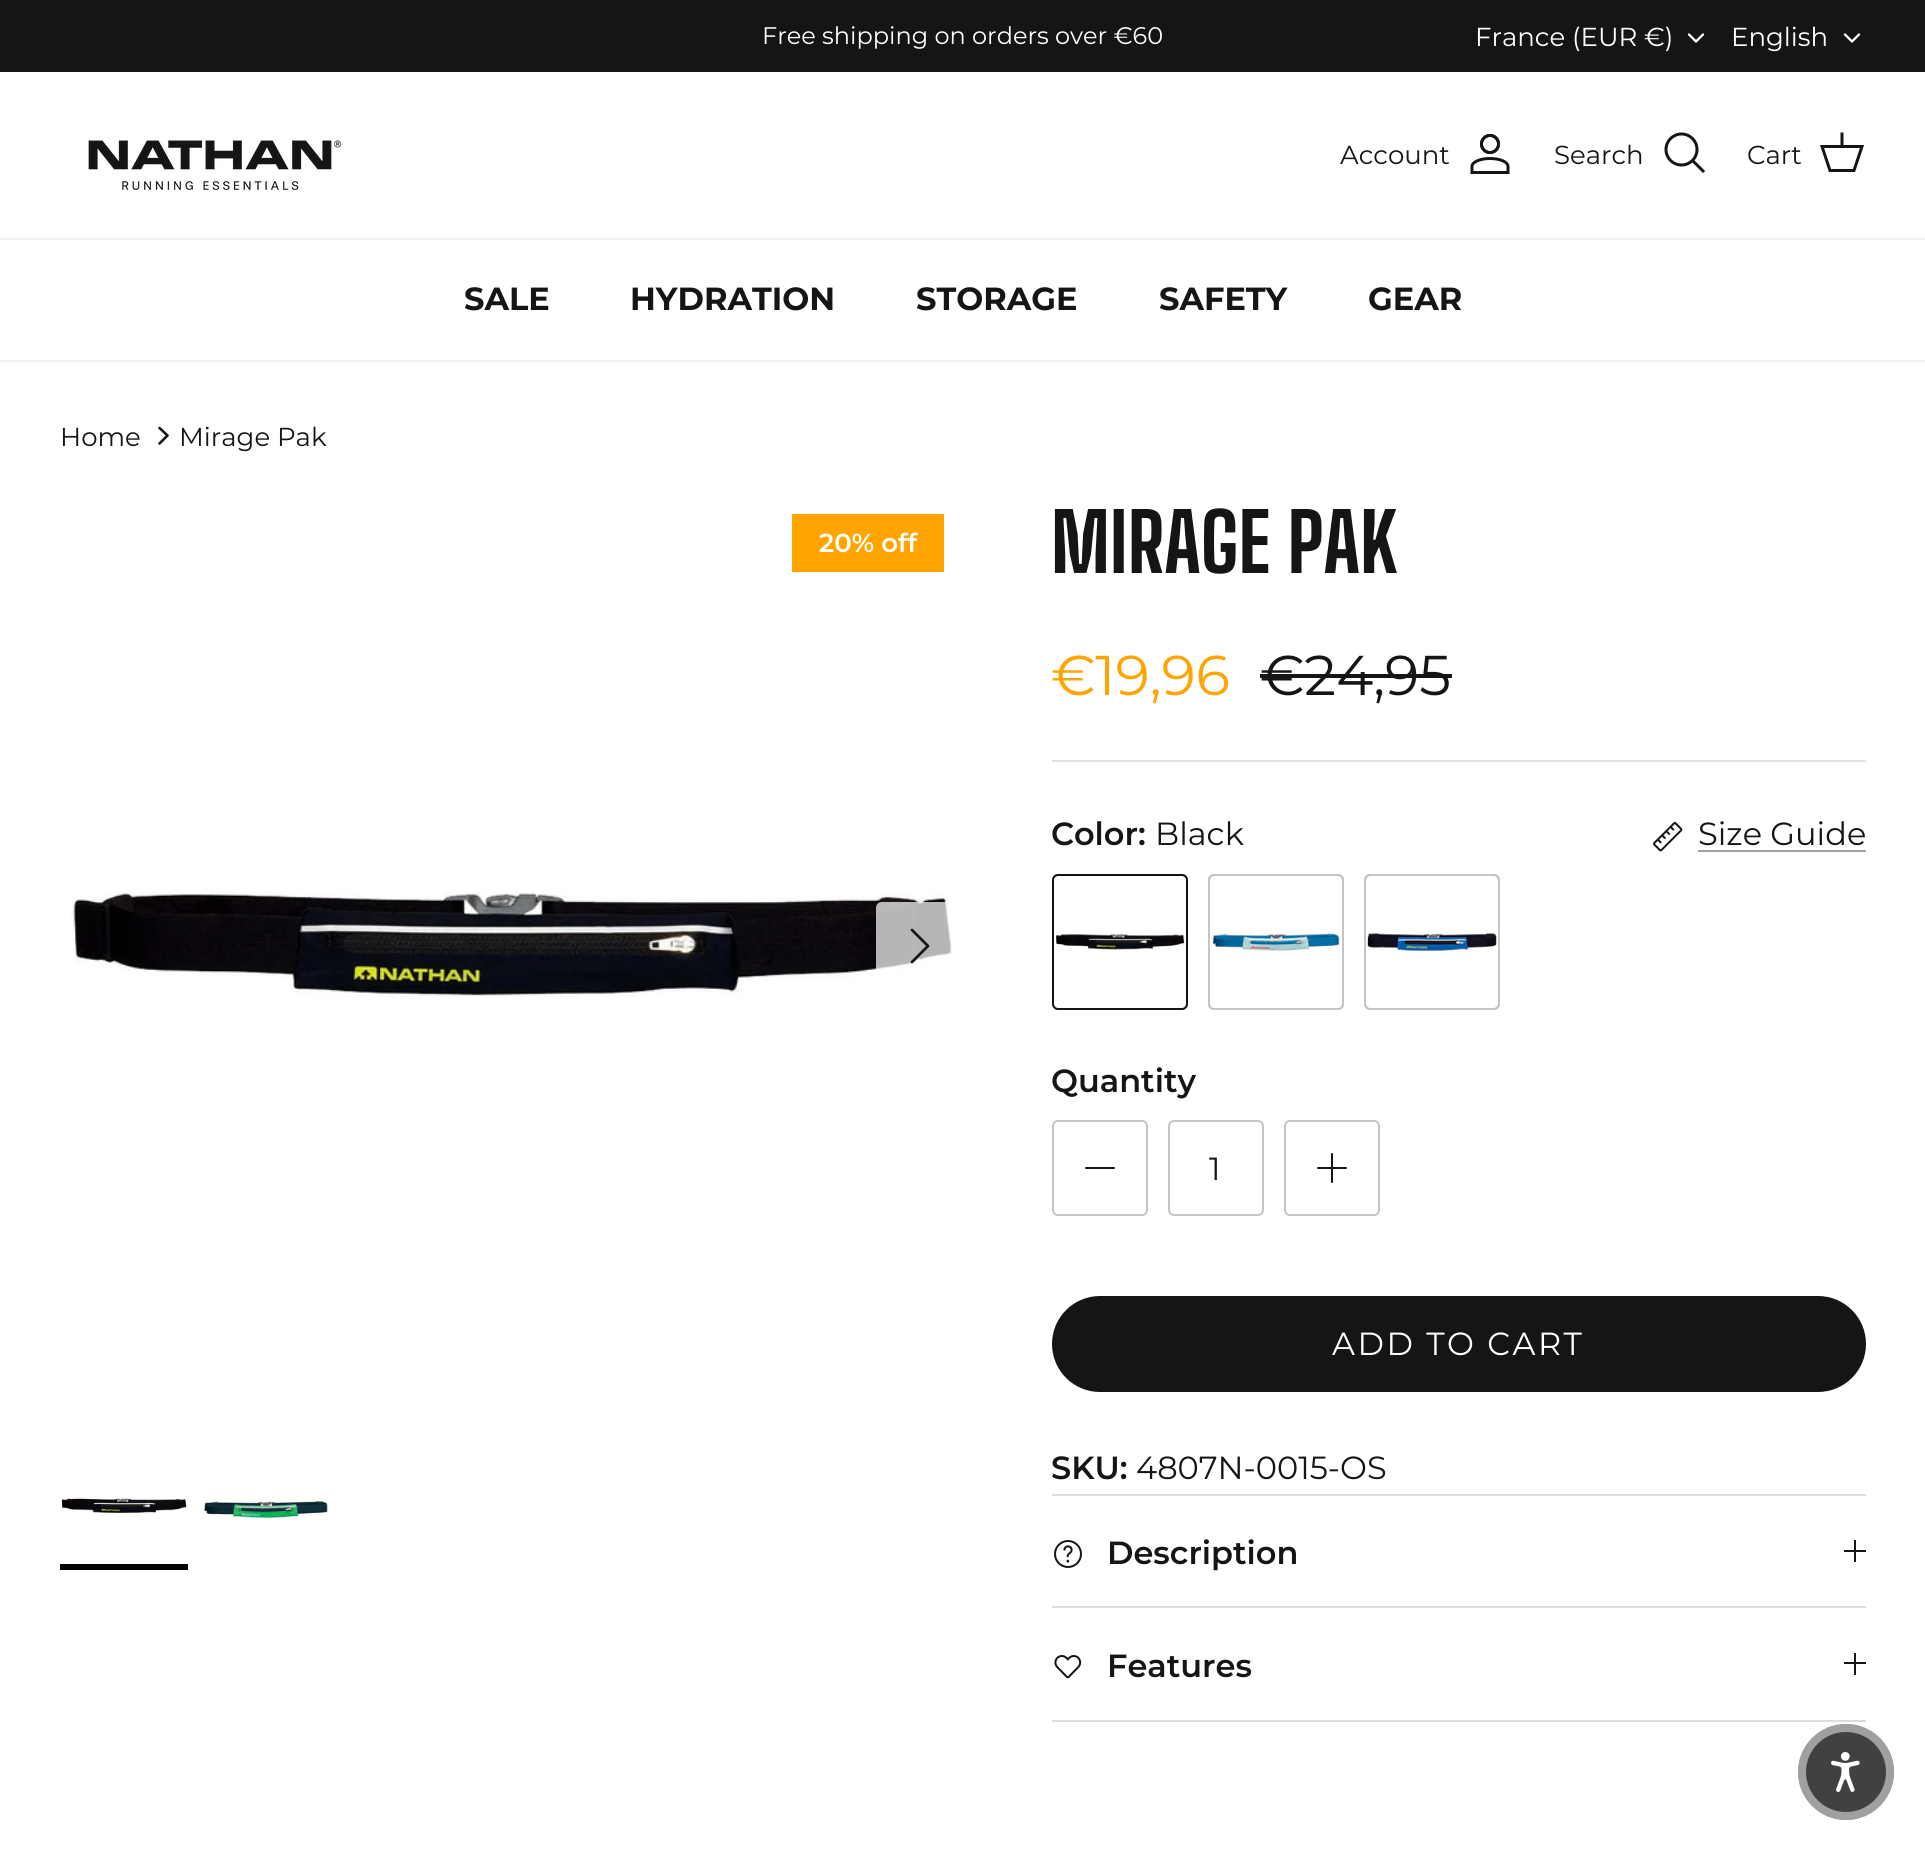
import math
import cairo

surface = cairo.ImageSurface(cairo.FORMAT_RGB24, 1925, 1851)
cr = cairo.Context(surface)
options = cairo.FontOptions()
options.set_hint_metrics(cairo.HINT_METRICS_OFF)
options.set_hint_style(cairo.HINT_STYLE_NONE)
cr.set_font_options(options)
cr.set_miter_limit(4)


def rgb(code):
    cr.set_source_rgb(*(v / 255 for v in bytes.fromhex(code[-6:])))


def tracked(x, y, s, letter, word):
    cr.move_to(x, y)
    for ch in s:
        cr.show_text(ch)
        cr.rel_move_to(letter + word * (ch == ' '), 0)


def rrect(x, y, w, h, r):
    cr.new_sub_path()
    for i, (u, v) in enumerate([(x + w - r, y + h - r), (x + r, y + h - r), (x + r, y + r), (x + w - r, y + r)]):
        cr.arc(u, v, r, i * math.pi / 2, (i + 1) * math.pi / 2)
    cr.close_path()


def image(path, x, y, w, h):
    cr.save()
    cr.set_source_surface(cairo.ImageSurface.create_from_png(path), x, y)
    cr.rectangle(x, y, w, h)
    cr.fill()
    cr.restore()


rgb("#ffffff")
cr.paint()
rgb("#161513")
cr.rectangle(0, 0, 1925, 72)
cr.fill()
cr.new_path()
cr.move_to(1689, 34.5)
cr.line_to(1696, 41.5)
cr.line_to(1703, 34.5)
rgb("#ffffff")
cr.set_line_width(2.3)
cr.set_line_cap(cairo.LINE_CAP_ROUND)
cr.set_line_join(cairo.LINE_JOIN_ROUND)
cr.stroke()
cr.new_path()
cr.move_to(1845, 34.5)
cr.line_to(1852, 41.5)
cr.line_to(1859, 34.5)
cr.stroke()
rgb("#f3f3f3")
cr.rectangle(0, 238, 1925, 2)
cr.fill()
image("img/1.png", 88, 140, 254, 51)
image("img/2.png", 1470, 134, 40, 40)
cr.arc(1681.5, 149.5, 15.5, 0, 2 * math.pi)
rgb("#161513")
cr.set_line_width(3)
cr.set_line_cap(cairo.LINE_CAP_BUTT)
cr.set_line_join(cairo.LINE_JOIN_MITER)
cr.stroke()
cr.new_path()
cr.move_to(1694, 162)
cr.line_to(1703, 171)
cr.set_line_cap(cairo.LINE_CAP_SQUARE)
cr.stroke()
cr.new_path()
cr.move_to(1822, 146.5)
cr.line_to(1862, 146.5)
cr.line_to(1854, 170.5)
cr.line_to(1830, 170.5)
cr.close_path()
cr.set_line_cap(cairo.LINE_CAP_BUTT)
cr.stroke()
cr.new_path()
cr.move_to(1842, 146)
cr.line_to(1842, 134)
cr.set_line_cap(cairo.LINE_CAP_SQUARE)
cr.stroke()
rgb("#f3f3f3")
cr.rectangle(0, 360, 1925, 2)
cr.fill()
cr.new_path()
cr.move_to(159.5, 443.5)
cr.line_to(167.5, 435.5)
cr.line_to(159.5, 428)
rgb("#161513")
cr.set_line_width(2.6)
cr.set_line_cap(cairo.LINE_CAP_ROUND)
cr.set_line_join(cairo.LINE_JOIN_ROUND)
cr.stroke()
rgb("#ffa400")
cr.rectangle(792, 514, 152, 58)
cr.fill()
image("img/3.png", 71, 891, 883, 107)
cr.set_source_rgba(1, 1, 1, 0.7)
cr.new_path()
cr.move_to(882, 902)
cr.line_to(964, 902)
cr.line_to(964, 990)
cr.line_to(882, 990)
cr.curve_to(878.5, 990, 876, 987.5, 876, 984)
cr.line_to(876, 908)
cr.curve_to(876, 904.5, 878.5, 902, 882, 902)
cr.close_path()
cr.fill()
cr.new_path()
cr.move_to(912, 962)
cr.line_to(928, 946)
cr.line_to(912, 930)
rgb("#161513")
cr.set_line_width(2.7)
cr.stroke()
image("img/4.png", 60, 1496, 128, 17)
rgb("#000000")
cr.rectangle(60, 1564, 128, 6)
cr.fill()
image("img/5.png", 202, 1499, 126, 22)
rgb("#161513")
cr.rectangle(1260, 674, 192, 4)
cr.fill()
rgb("#e2e2e2")
cr.rectangle(1052, 760, 814, 2)
cr.fill()
image("img/6.png", 1653, 822, 30, 30)
rgb("#a2a1a1")
cr.rectangle(1698, 850, 168, 2)
cr.fill()
image("img/7.png", 1055, 934, 130, 20)
rrect(1053, 875, 134, 134, 5)
rgb("#c5c5c4")
cr.set_line_width(2)
cr.set_line_cap(cairo.LINE_CAP_BUTT)
cr.set_line_join(cairo.LINE_JOIN_MITER)
cr.stroke()
rrect(1053, 875, 134, 134, 5)
rgb("#161513")
cr.stroke()
image("img/8.png", 1210, 930, 132, 23)
rrect(1209, 875, 134, 134, 5)
rgb("#c5c5c4")
cr.stroke()
rrect(1209, 875, 134, 134, 5)
cr.stroke()
image("img/9.png", 1367, 930, 131, 24)
rrect(1365, 875, 134, 134, 5)
cr.stroke()
rrect(1365, 875, 134, 134, 5)
cr.stroke()
rrect(1053, 1121, 94, 94, 5)
cr.stroke()
cr.new_path()
cr.move_to(1086, 1168)
cr.line_to(1114, 1168)
rgb("#161513")
cr.set_line_cap(cairo.LINE_CAP_ROUND)
cr.set_line_join(cairo.LINE_JOIN_ROUND)
cr.stroke()
rrect(1169, 1121, 94, 94, 5)
rgb("#c5c5c4")
cr.set_line_cap(cairo.LINE_CAP_BUTT)
cr.set_line_join(cairo.LINE_JOIN_MITER)
cr.stroke()
rrect(1285, 1121, 94, 94, 5)
cr.stroke()
cr.new_path()
cr.move_to(1332, 1154)
cr.line_to(1332, 1182)
cr.move_to(1318, 1168)
cr.line_to(1346, 1168)
rgb("#161513")
cr.set_line_cap(cairo.LINE_CAP_ROUND)
cr.set_line_join(cairo.LINE_JOIN_ROUND)
cr.stroke()
rrect(1053, 1297, 812, 94, 47)
cr.fill_preserve()
cr.set_line_cap(cairo.LINE_CAP_BUTT)
cr.set_line_join(cairo.LINE_JOIN_MITER)
cr.stroke()
rgb("#dcdcdc")
cr.rectangle(1052, 1494, 814, 2)
cr.fill()
cr.rectangle(1052, 1606, 814, 2)
cr.fill()
image("img/10.png", 1054, 1540, 28, 28)
for x, y, w, h, color in [
    (1854, 1540, 2, 22, "#161513"),
    (1844, 1550, 22, 2, "#161513"),
    (1052, 1720, 814, 2, "#dcdcdc"),
]:
    rgb(color)
    cr.rectangle(x, y, w, h)
    cr.fill()
image("img/11.png", 1054, 1655, 28, 24)
rgb("#161513")
cr.rectangle(1854, 1653, 2, 22)
cr.fill()
cr.rectangle(1844, 1662, 22, 2)
cr.fill()
rgb("#414042")
cr.arc(1846, 1772, 48, 0, 2 * math.pi)
cr.fill()
cr.arc(1846, 1772, 44, 0, 2 * math.pi)
cr.set_source_rgba(1, 1, 1, 0.5)
cr.set_line_width(8)
cr.stroke()
image("img/12.png", 1831, 1752, 29, 40)
cr.select_font_face("Montserrat")
cr.set_font_size(24)
rgb("#ffffff")
cr.move_to(762, 44)
cr.show_text("Free shipping on orders over €60")
cr.set_font_size(26)
cr.move_to(1475, 46)
cr.show_text("France (EUR €)")
cr.move_to(1731, 46)
cr.show_text("English")
rgb("#161513")
for x, y, s in [
    (1340, 164, "Account"),
    (1554, 164, "Search"),
    (1747, 164, "Cart"),
]:
    cr.move_to(x, y)
    cr.show_text(s)
cr.select_font_face("Montserrat", cairo.FONT_SLANT_NORMAL, cairo.FONT_WEIGHT_BOLD)
cr.set_font_size(32)
for x, y, s in [
    (464, 310, "SALE"),
    (630, 310, "HYDRATION"),
    (916, 310, "STORAGE"),
    (1159, 310, "SAFETY"),
    (1368, 310, "GEAR"),
]:
    cr.move_to(x, y)
    cr.show_text(s)
cr.select_font_face("Montserrat")
cr.set_font_size(26)
cr.move_to(60, 446)
cr.show_text("Home")
cr.move_to(179, 446)
cr.show_text("Mirage Pak")
cr.select_font_face("Montserrat SemiBold")
rgb("#ffffff")
cr.move_to(819, 552)
cr.show_text("20% off")
cr.select_font_face("Big Shoulders", cairo.FONT_SLANT_NORMAL, cairo.FONT_WEIGHT_BOLD)
cr.set_font_size(80)
rgb("#161513")
cr.move_to(1051, 573)
cr.show_text("MIRAGE PAK")
cr.select_font_face("Montserrat")
cr.set_font_size(56)
rgb("#ffa400")
cr.move_to(1051, 695)
cr.show_text("€19,96")
rgb("#161513")
cr.move_to(1260, 695)
cr.show_text("€24,95")
cr.select_font_face("Montserrat SemiBold")
cr.set_font_size(32)
cr.move_to(1051, 845)
cr.show_text("Color:")
cr.select_font_face("Montserrat")
cr.move_to(1155, 845)
cr.show_text("Black")
cr.move_to(1698, 845)
cr.show_text("Size Guide")
cr.select_font_face("Montserrat SemiBold")
cr.move_to(1051, 1092)
cr.show_text("Quantity")
cr.select_font_face("Montserrat")
cr.move_to(1209, 1180)
cr.show_text("1")
rgb("#ffffff")
tracked(1332, 1355, "ADD TO CART", 2.5, 0)
cr.select_font_face("Montserrat SemiBold")
rgb("#161513")
cr.move_to(1051, 1479)
cr.show_text("SKU:")
cr.select_font_face("Montserrat")
cr.move_to(1136, 1479)
cr.show_text("4807N-0015-OS")
cr.select_font_face("Montserrat SemiBold")
cr.move_to(1107, 1564)
cr.show_text("Description")
cr.move_to(1107, 1677)
cr.show_text("Features")
surface.write_to_png("page.png")
